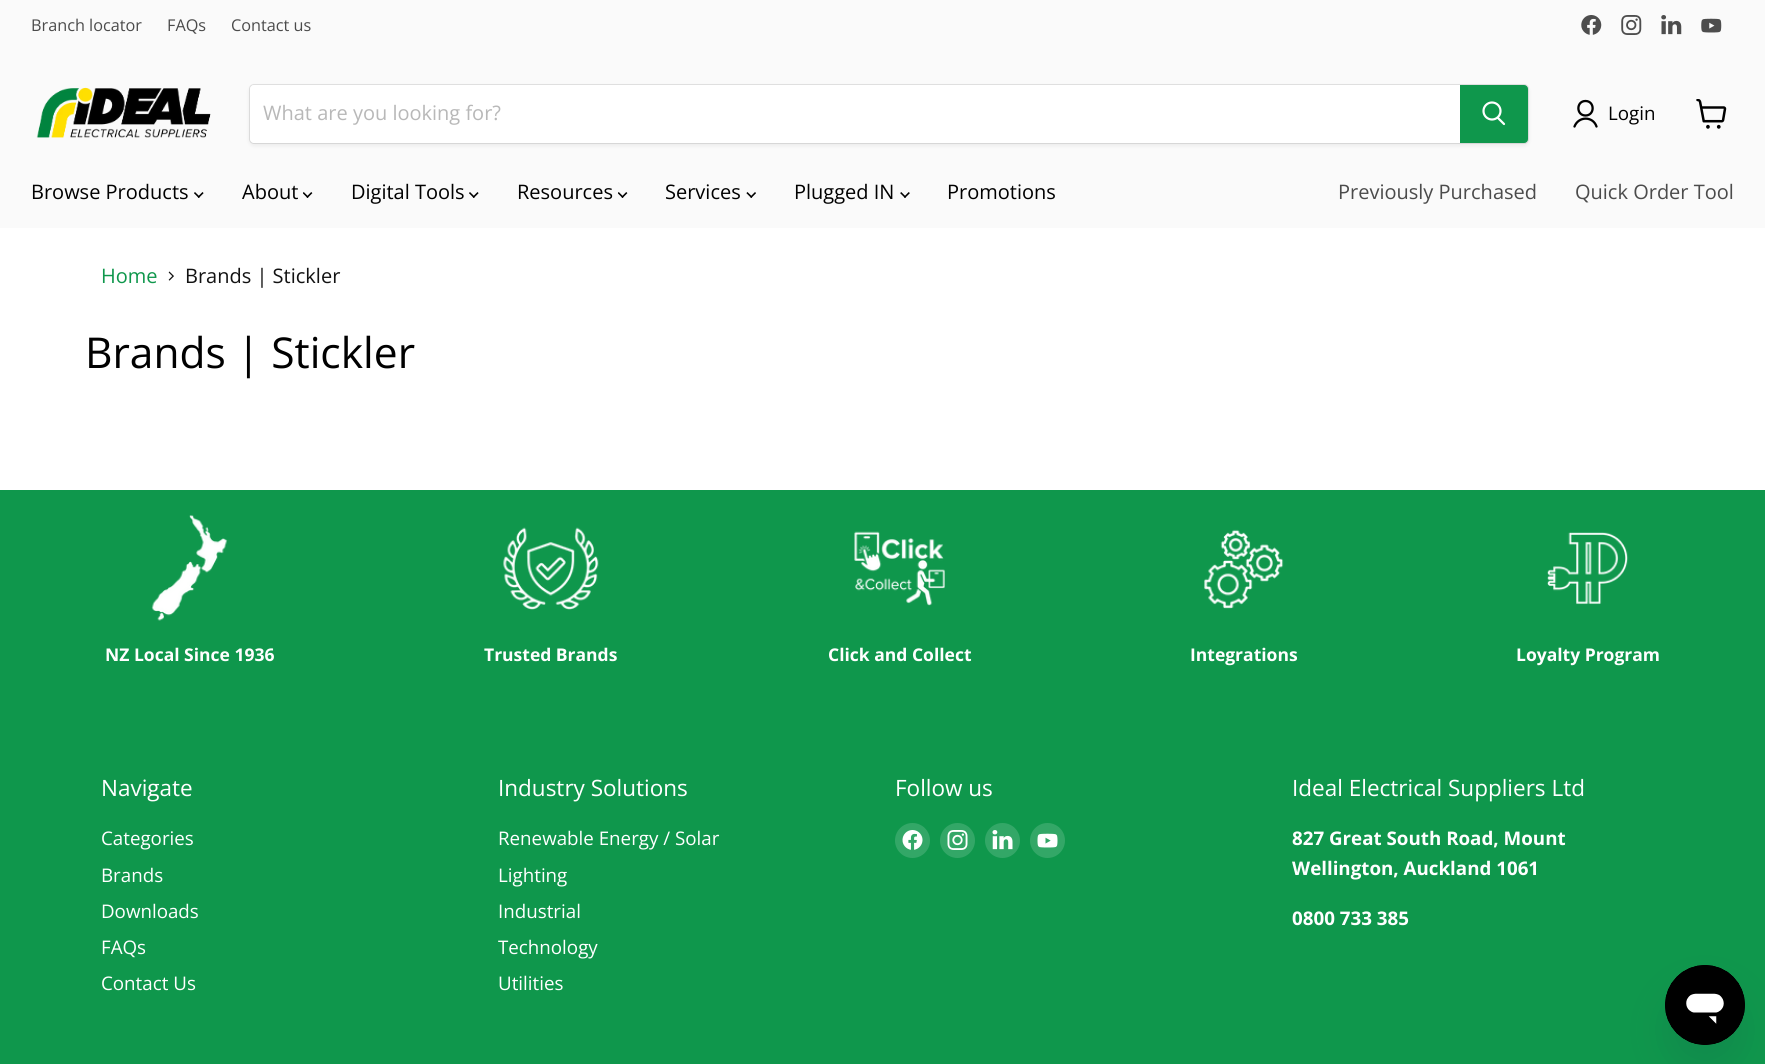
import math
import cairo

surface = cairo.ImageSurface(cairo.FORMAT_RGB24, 1765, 1064)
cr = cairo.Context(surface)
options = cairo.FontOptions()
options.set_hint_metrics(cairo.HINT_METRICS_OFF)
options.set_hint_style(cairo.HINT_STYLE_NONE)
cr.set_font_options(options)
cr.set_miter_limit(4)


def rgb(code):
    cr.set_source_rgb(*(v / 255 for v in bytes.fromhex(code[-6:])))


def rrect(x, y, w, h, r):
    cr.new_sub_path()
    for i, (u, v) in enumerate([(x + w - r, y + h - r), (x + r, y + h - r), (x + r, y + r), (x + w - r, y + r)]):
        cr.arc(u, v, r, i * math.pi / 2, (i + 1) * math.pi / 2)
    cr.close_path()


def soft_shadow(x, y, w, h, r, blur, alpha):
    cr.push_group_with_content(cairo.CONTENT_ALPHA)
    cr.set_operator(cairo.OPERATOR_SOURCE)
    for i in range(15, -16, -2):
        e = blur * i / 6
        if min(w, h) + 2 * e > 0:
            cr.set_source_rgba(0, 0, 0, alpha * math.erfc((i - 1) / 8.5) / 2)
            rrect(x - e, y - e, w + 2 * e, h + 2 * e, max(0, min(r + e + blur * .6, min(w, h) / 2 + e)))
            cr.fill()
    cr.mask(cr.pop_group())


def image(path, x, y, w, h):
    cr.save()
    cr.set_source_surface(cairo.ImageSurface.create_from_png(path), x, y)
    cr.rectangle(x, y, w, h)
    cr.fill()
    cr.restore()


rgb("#ffffff")
cr.paint()
rgb("#fafafa")
cr.rectangle(0, 0, 1765, 228)
cr.fill()
image("img/1.png", 1581, 15, 21, 20)
image("img/2.png", 1621, 15, 21, 20)
image("img/3.png", 1661, 15, 21, 20)
image("img/4.png", 1701, 18, 21, 15)
image("img/5.png", 36, 87, 175, 51)
rgb("#808080")
soft_shadow(249, 86, 1280, 60, 5, 2, 0.11)
rrect(249.5, 84.5, 1279, 59, 4.5)
cr.set_source_rgba(0.502, 0.502, 0.502, 0.2)
cr.set_line_width(1)
cr.stroke()
rgb("#ffffff")
cr.new_path()
cr.move_to(254, 85)
cr.line_to(1460, 85)
cr.line_to(1460, 143)
cr.line_to(254, 143)
cr.curve_to(252, 143, 250, 141, 250, 139)
cr.line_to(250, 89)
cr.curve_to(250, 87, 252, 85, 254, 85)
cr.close_path()
cr.fill()
rgb("#0f974c")
cr.new_path()
cr.move_to(1460.5, 85.5)
cr.line_to(1524, 85.5)
cr.curve_to(1526, 85.5, 1527.5, 87, 1527.5, 89)
cr.line_to(1527.5, 139)
cr.curve_to(1527.5, 141, 1526, 142.5, 1524, 142.5)
cr.line_to(1460.5, 142.5)
cr.close_path()
cr.fill_preserve()
cr.stroke()
cr.new_path()
cr.move_to(1504, 124)
cr.line_to(1498, 118)
rgb("#ffffff")
cr.set_line_width(2.2)
cr.set_line_cap(cairo.LINE_CAP_ROUND)
cr.stroke()
cr.arc(1492, 111, 8.5, 0, 2 * math.pi)
cr.set_line_cap(cairo.LINE_CAP_BUTT)
cr.stroke()
cr.new_path()
cr.move_to(1585.5, 115.5)
cr.curve_to(1595, 115.5, 1595, 101, 1585.5, 101)
cr.curve_to(1576, 101, 1576, 115.5, 1585.5, 115.5)
cr.close_path()
cr.move_to(1596.5, 126.5)
cr.curve_to(1593, 116, 1578.5, 116, 1574.5, 126.5)
rgb("#000000")
cr.set_line_width(2.3)
cr.set_line_cap(cairo.LINE_CAP_ROUND)
cr.set_line_join(cairo.LINE_JOIN_ROUND)
cr.stroke()
image("img/6.png", 1696, 99, 31, 30)
image("img/7.png", 194, 192, 10, 6)
image("img/8.png", 303, 192, 10, 6)
image("img/7.png", 469, 192, 10, 6)
image("img/8.png", 618, 192, 10, 6)
image("img/9.png", 746, 192, 10, 6)
image("img/10.png", 900, 192, 10, 6)
image("img/11.png", 168, 271, 6, 10)
rgb("#0f974c")
cr.rectangle(0, 490, 1765, 574)
cr.fill()
image("img/12.png", 151, 515, 77, 106)
image("img/13.png", 503, 527, 96, 83)
image("img/14.png", 854, 531, 91, 75)
image("img/15.png", 1204, 529, 80, 80)
image("img/16.png", 1547, 532, 82, 73)
rgb("#33a767")
cr.arc(912.5, 840.5, 17.5, 0, 2 * math.pi)
cr.fill()
image("img/17.png", 902, 830, 21, 20)
cr.arc(957.5, 840.5, 17.5, 0, 2 * math.pi)
cr.fill()
image("img/18.png", 947, 830, 21, 20)
cr.arc(1002.5, 840.5, 17.5, 0, 2 * math.pi)
cr.fill()
image("img/19.png", 992, 830, 21, 20)
cr.arc(1047.5, 840.5, 17.5, 0, 2 * math.pi)
cr.fill()
image("img/20.png", 1037, 833, 21, 15)
rgb("#17494d")
soft_shadow(1665, 990, 80, 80, 40, 19, 0.15)
image("img/21.png", 1665, 965, 80, 80)
cr.select_font_face("Open Sans")
cr.set_font_size(16.25)
rgb("#4b4b4b")
for x, y, s in [
    (31, 31, "Branch locator"),
    (167, 31, "FAQs"),
    (231, 31, "Contact us"),
]:
    cr.move_to(x, y)
    cr.show_text(s)
cr.set_font_size(20)
rgb("#b8b8b8")
cr.move_to(263, 120)
cr.show_text("What are you looking for?")
cr.set_font_size(18.75)
rgb("#000000")
cr.move_to(1608, 120)
cr.show_text("Login")
cr.set_font_size(20)
for x, y, s in [
    (31, 199, "Browse Products"),
    (242, 199, "About"),
    (351, 199, "Digital Tools"),
    (517, 199, "Resources"),
    (665, 199, "Services"),
    (794, 199, "Plugged IN"),
    (947, 199, "Promotions"),
]:
    cr.move_to(x, y)
    cr.show_text(s)
rgb("#4b4b4b")
cr.move_to(1338, 199)
cr.show_text("Previously Purchased")
cr.move_to(1575, 199)
cr.show_text("Quick Order Tool")
rgb("#0f974c")
cr.move_to(101, 283)
cr.show_text("Home")
rgb("#121212")
cr.move_to(185, 283)
cr.show_text("Brands | Stickler")
cr.set_font_size(42.5)
rgb("#000000")
cr.move_to(85, 368)
cr.show_text("Brands | Stickler")
cr.select_font_face("Open Sans", cairo.FONT_SLANT_NORMAL, cairo.FONT_WEIGHT_BOLD)
cr.set_font_size(17.5)
rgb("#ffffff")
for x, y, s in [
    (105, 661, "NZ Local Since 1936"),
    (484, 661, "Trusted Brands"),
    (828, 661, "Click and Collect"),
    (1190, 661, "Integrations"),
    (1516, 661, "Loyalty Program"),
]:
    cr.move_to(x, y)
    cr.show_text(s)
cr.select_font_face("Open Sans")
cr.set_font_size(22.5)
cr.move_to(101, 796)
cr.show_text("Navigate")
cr.set_font_size(18.75)
for x, y, s in [
    (101, 845, "Categories"),
    (101, 882, "Brands"),
    (101, 918, "Downloads"),
    (101, 954, "FAQs"),
    (101, 990, "Contact Us"),
]:
    cr.move_to(x, y)
    cr.show_text(s)
cr.set_font_size(22.5)
cr.move_to(498, 796)
cr.show_text("Industry Solutions")
cr.set_font_size(18.75)
for x, y, s in [
    (498, 845, "Renewable Energy / Solar"),
    (498, 882, "Lighting"),
    (498, 918, "Industrial"),
    (498, 954, "Technology"),
    (498, 990, "Utilities"),
]:
    cr.move_to(x, y)
    cr.show_text(s)
cr.set_font_size(22.5)
cr.move_to(895, 796)
cr.show_text("Follow us")
cr.move_to(1292, 796)
cr.show_text("Ideal Electrical Suppliers Ltd")
cr.select_font_face("Open Sans", cairo.FONT_SLANT_NORMAL, cairo.FONT_WEIGHT_BOLD)
cr.set_font_size(18.75)
for x, y, s in [
    (1292, 845, "827 Great South Road, Mount"),
    (1292, 875, "Wellington, Auckland 1061"),
    (1292, 925, "0800 733 385"),
]:
    cr.move_to(x, y)
    cr.show_text(s)
surface.write_to_png("page.png")
